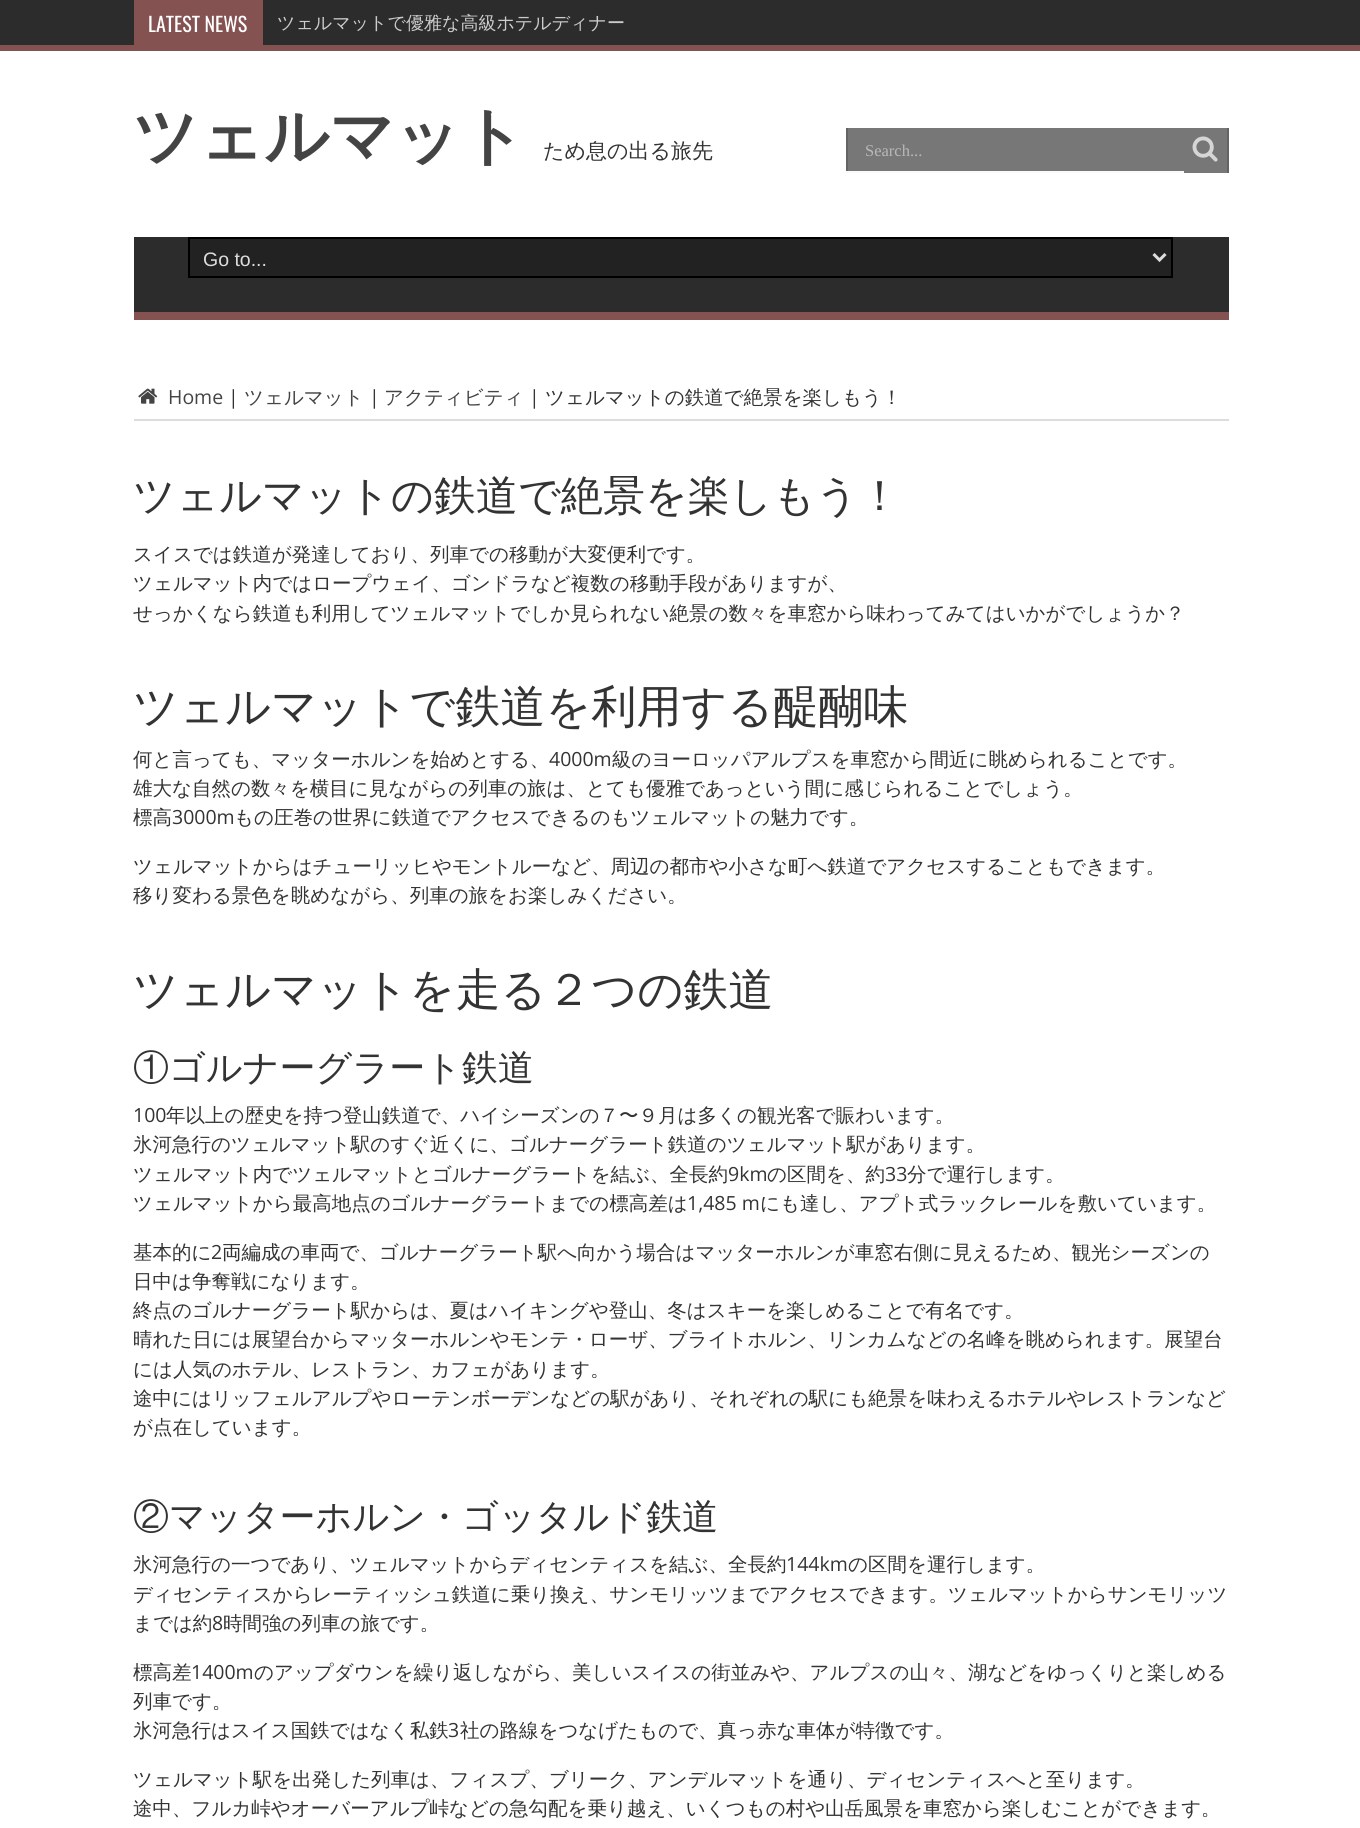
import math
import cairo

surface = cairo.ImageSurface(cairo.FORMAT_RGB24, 1360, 1828)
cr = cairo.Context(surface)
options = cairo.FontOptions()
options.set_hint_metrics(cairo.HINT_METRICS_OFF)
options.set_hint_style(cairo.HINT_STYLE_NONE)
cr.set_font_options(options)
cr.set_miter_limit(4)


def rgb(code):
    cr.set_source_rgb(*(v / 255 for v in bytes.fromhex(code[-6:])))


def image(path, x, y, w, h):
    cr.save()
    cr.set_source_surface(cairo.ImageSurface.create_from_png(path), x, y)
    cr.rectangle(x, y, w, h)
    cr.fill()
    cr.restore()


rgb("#ffffff")
cr.paint()
for x, y, w, h, color in [
    (0, 0, 1360, 45, "#2c2c2c"),
    (0, 45, 1360, 6, "#855252"),
    (134, 0, 129, 45, "#855252"),
]:
    rgb(color)
    cr.rectangle(x, y, w, h)
    cr.fill()
cr.save()
cr.rectangle(846, 128, 383, 45)
cr.clip()
rgb("#fafafa")
cr.new_path()
cr.move_to(846, 171)
cr.line_to(846, 174)
cr.line_to(1184, 174)
cr.line_to(1184, 131)
cr.line_to(1184, 171)
cr.close_path()
cr.fill()
cr.restore()
for x, y, w, h, color in [
    (848, 128, 336, 43, "#777777"),
    (846, 128, 2, 43, "#646464"),
    (1184, 128, 43, 45, "#777777"),
    (1227, 128, 2, 45, "#646464"),
]:
    rgb(color)
    cr.rectangle(x, y, w, h)
    cr.fill()
image("img/1.png", 1192, 136, 26, 26)
rgb("#2c2c2c")
cr.rectangle(134, 237, 1095, 75)
cr.fill()
rgb("#855252")
cr.rectangle(134, 312, 1095, 8)
cr.fill()
rgb("#222222")
cr.rectangle(189, 238, 983, 39)
cr.fill_preserve()
rgb("#000000")
cr.stroke()
cr.new_path()
cr.move_to(1153.5, 254)
cr.line_to(1159.5, 260)
cr.line_to(1165.5, 254)
rgb("#dddddd")
cr.set_line_width(3)
cr.stroke()
cr.rectangle(134, 419, 1095, 2)
cr.fill()
image("img/2.png", 138, 388, 20, 16)
cr.select_font_face("Oswald")
cr.set_font_size(20)
rgb("#ffffff")
cr.move_to(148, 32)
cr.show_text("LATEST NEWS")
cr.select_font_face("WenQuanYi Zen Hei Medium")
cr.set_font_size(18)
rgb("#cccccc")
cr.move_to(277, 29)
cr.show_text("ツェルマットで優雅な高級ホテルディナー")
cr.save()
cr.rectangle(866, 141, 300, 18)
cr.clip()
cr.select_font_face("Liberation Serif")
cr.set_font_size(16.5)
rgb("#b8b8b8")
cr.move_to(865, 156)
cr.show_text("Search...")
cr.restore()
cr.select_font_face("WenQuanYi Zen Hei", cairo.FONT_SLANT_NORMAL, cairo.FONT_WEIGHT_BOLD)
cr.set_font_size(64)
rgb("#444444")
cr.move_to(133, 158)
cr.show_text("ツェルマット")
cr.select_font_face("WenQuanYi Zen Hei Medium")
cr.set_font_size(21)
rgb("#333333")
cr.move_to(543, 158)
cr.show_text("ため息の出る旅先")
cr.select_font_face("Liberation Sans")
cr.set_font_size(19.5)
rgb("#dddddd")
cr.move_to(203, 266)
cr.show_text("Go to...")
cr.select_font_face("Open Sans")
rgb("#444444")
cr.move_to(168, 404)
cr.show_text("Home")
rgb("#333333")
cr.move_to(228, 404)
cr.show_text("|")
cr.select_font_face("WenQuanYi Zen Hei Medium")
rgb("#444444")
cr.move_to(244, 404)
cr.show_text("ツェルマット")
cr.select_font_face("Open Sans")
rgb("#333333")
cr.move_to(369, 404)
cr.show_text("|")
cr.select_font_face("WenQuanYi Zen Hei Medium")
rgb("#444444")
cr.move_to(384, 404)
cr.show_text("アクティビティ")
cr.select_font_face("Open Sans")
rgb("#333333")
cr.move_to(529, 404)
cr.show_text("|")
cr.select_font_face("WenQuanYi Zen Hei Medium")
cr.move_to(545, 404)
cr.show_text("ツェルマットの鉄道で絶景を楽しもう！")
cr.set_font_size(42)
cr.move_to(133, 510)
cr.show_text("ツェルマットの鉄道で絶景を楽しもう！")
cr.set_font_size(19.5)
for x, y, s in [
    (133, 561, "スイスでは鉄道が発達しており、列車での移動が大変便利です。"),
    (133, 590, "ツェルマット内ではロープウェイ、ゴンドラなど複数の移動手段がありますが、"),
    (133, 620, "せっかくなら鉄道も利用してツェルマットでしか見られない絶景の数々を車窓から味わってみてはいかがでしょうか？"),
]:
    cr.move_to(x, y)
    cr.show_text(s)
cr.set_font_size(45)
cr.move_to(133, 722)
cr.show_text("ツェルマットで鉄道を利用する醍醐味")
cr.set_font_size(19.5)
cr.move_to(133, 766)
cr.show_text("何と言っても、マッターホルンを始めとする、")
cr.select_font_face("Open Sans")
cr.move_to(549, 766)
cr.show_text("4000m")
cr.select_font_face("WenQuanYi Zen Hei Medium")
for x, y, s in [
    (612, 766, "級のヨーロッパアルプスを車窓から間近に眺められることです。"),
    (133, 795, "雄大な自然の数々を横目に見ながらの列車の旅は、とても優雅であっという間に感じられることでしょう。"),
    (133, 824, "標高"),
]:
    cr.move_to(x, y)
    cr.show_text(s)
cr.select_font_face("Open Sans")
cr.move_to(172, 824)
cr.show_text("3000m")
cr.select_font_face("WenQuanYi Zen Hei Medium")
for x, y, s in [
    (234, 824, "もの圧巻の世界に鉄道でアクセスできるのもツェルマットの魅力です。"),
    (133, 873, "ツェルマットからはチューリッヒやモントルーなど、周辺の都市や小さな町へ鉄道でアクセスすることもできます。"),
    (133, 902, "移り変わる景色を眺めながら、列車の旅をお楽しみください。"),
]:
    cr.move_to(x, y)
    cr.show_text(s)
cr.set_font_size(45)
cr.move_to(133, 1005)
cr.show_text("ツェルマットを走る２つの鉄道")
cr.set_font_size(36)
cr.move_to(133, 1080)
cr.show_text("①ゴルナーグラート鉄道")
cr.select_font_face("Open Sans")
cr.set_font_size(19.5)
cr.move_to(133, 1122)
cr.show_text("100")
cr.select_font_face("WenQuanYi Zen Hei Medium")
for x, y, s in [
    (166, 1122, "年以上の歴史を持つ登山鉄道で、ハイシーズンの７〜９月は多くの観光客で賑わいます。"),
    (133, 1151, "氷河急行のツェルマット駅のすぐ近くに、ゴルナーグラート鉄道のツェルマット駅があります。"),
    (133, 1181, "ツェルマット内でツェルマットとゴルナーグラートを結ぶ、全長約"),
]:
    cr.move_to(x, y)
    cr.show_text(s)
cr.select_font_face("Open Sans")
cr.move_to(728, 1181)
cr.show_text("9km")
cr.select_font_face("WenQuanYi Zen Hei Medium")
cr.move_to(767, 1181)
cr.show_text("の区間を、約")
cr.select_font_face("Open Sans")
cr.move_to(885, 1181)
cr.show_text("33")
cr.select_font_face("WenQuanYi Zen Hei Medium")
cr.move_to(907, 1181)
cr.show_text("分で運行します。")
cr.move_to(133, 1210)
cr.show_text("ツェルマットから最高地点のゴルナーグラートまでの標高差は")
cr.select_font_face("Open Sans")
cr.move_to(687, 1210)
cr.show_text("1,485 m")
cr.select_font_face("WenQuanYi Zen Hei Medium")
cr.move_to(760, 1210)
cr.show_text("にも達し、アプト式ラックレールを敷いています。")
cr.move_to(133, 1259)
cr.show_text("基本的に")
cr.select_font_face("Open Sans")
cr.move_to(211, 1259)
cr.show_text("2")
cr.select_font_face("WenQuanYi Zen Hei Medium")
for x, y, s in [
    (222, 1259, "両編成の車両で、ゴルナーグラート駅へ向かう場合はマッターホルンが車窓右側に見えるため、観光シーズンの"),
    (133, 1288, "日中は争奪戦になります。"),
    (133, 1317, "終点のゴルナーグラート駅からは、夏はハイキングや登山、冬はスキーを楽しめることで有名です。"),
    (133, 1346, "晴れた日には展望台からマッターホルンやモンテ・ローザ、ブライトホルン、リンカムなどの名峰を眺められます。展望台"),
    (133, 1376, "には人気のホテル、レストラン、カフェがあります。"),
    (133, 1405, "途中にはリッフェルアルプやローテンボーデンなどの駅があり、それぞれの駅にも絶景を味わえるホテルやレストランなど"),
    (133, 1434, "が点在しています。"),
]:
    cr.move_to(x, y)
    cr.show_text(s)
cr.set_font_size(36)
cr.move_to(133, 1529)
cr.show_text("②マッターホルン・ゴッタルド鉄道")
cr.set_font_size(19.5)
cr.move_to(133, 1571)
cr.show_text("氷河急行の一つであり、ツェルマットからディセンティスを結ぶ、全長約")
cr.select_font_face("Open Sans")
cr.move_to(786, 1571)
cr.show_text("144km")
cr.select_font_face("WenQuanYi Zen Hei Medium")
for x, y, s in [
    (848, 1571, "の区間を運行します。"),
    (133, 1601, "ディセンティスからレーティッシュ鉄道に乗り換え、サンモリッツまでアクセスできます。ツェルマットからサンモリッツ"),
    (133, 1630, "までは約"),
]:
    cr.move_to(x, y)
    cr.show_text(s)
cr.select_font_face("Open Sans")
cr.move_to(212, 1630)
cr.show_text("8")
cr.select_font_face("WenQuanYi Zen Hei Medium")
cr.move_to(223, 1630)
cr.show_text("時間強の列車の旅です。")
cr.move_to(133, 1679)
cr.show_text("標高差")
cr.select_font_face("Open Sans")
cr.move_to(191, 1679)
cr.show_text("1400m")
cr.select_font_face("WenQuanYi Zen Hei Medium")
for x, y, s in [
    (254, 1679, "のアップダウンを繰り返しながら、美しいスイスの街並みや、アルプスの山々、湖などをゆっくりと楽しめる"),
    (133, 1708, "列車です。"),
    (133, 1737, "氷河急行はスイス国鉄ではなく私鉄"),
]:
    cr.move_to(x, y)
    cr.show_text(s)
cr.select_font_face("Open Sans")
cr.move_to(448, 1737)
cr.show_text("3")
cr.select_font_face("WenQuanYi Zen Hei Medium")
for x, y, s in [
    (460, 1737, "社の路線をつなげたもので、真っ赤な車体が特徴です。"),
    (133, 1786, "ツェルマット駅を出発した列車は、フィスプ、ブリーク、アンデルマットを通り、ディセンティスへと至ります。"),
    (133, 1815, "途中、フルカ峠やオーバーアルプ峠などの急勾配を乗り越え、いくつもの村や山岳風景を車窓から楽しむことができます。"),
]:
    cr.move_to(x, y)
    cr.show_text(s)
surface.write_to_png("page.png")
